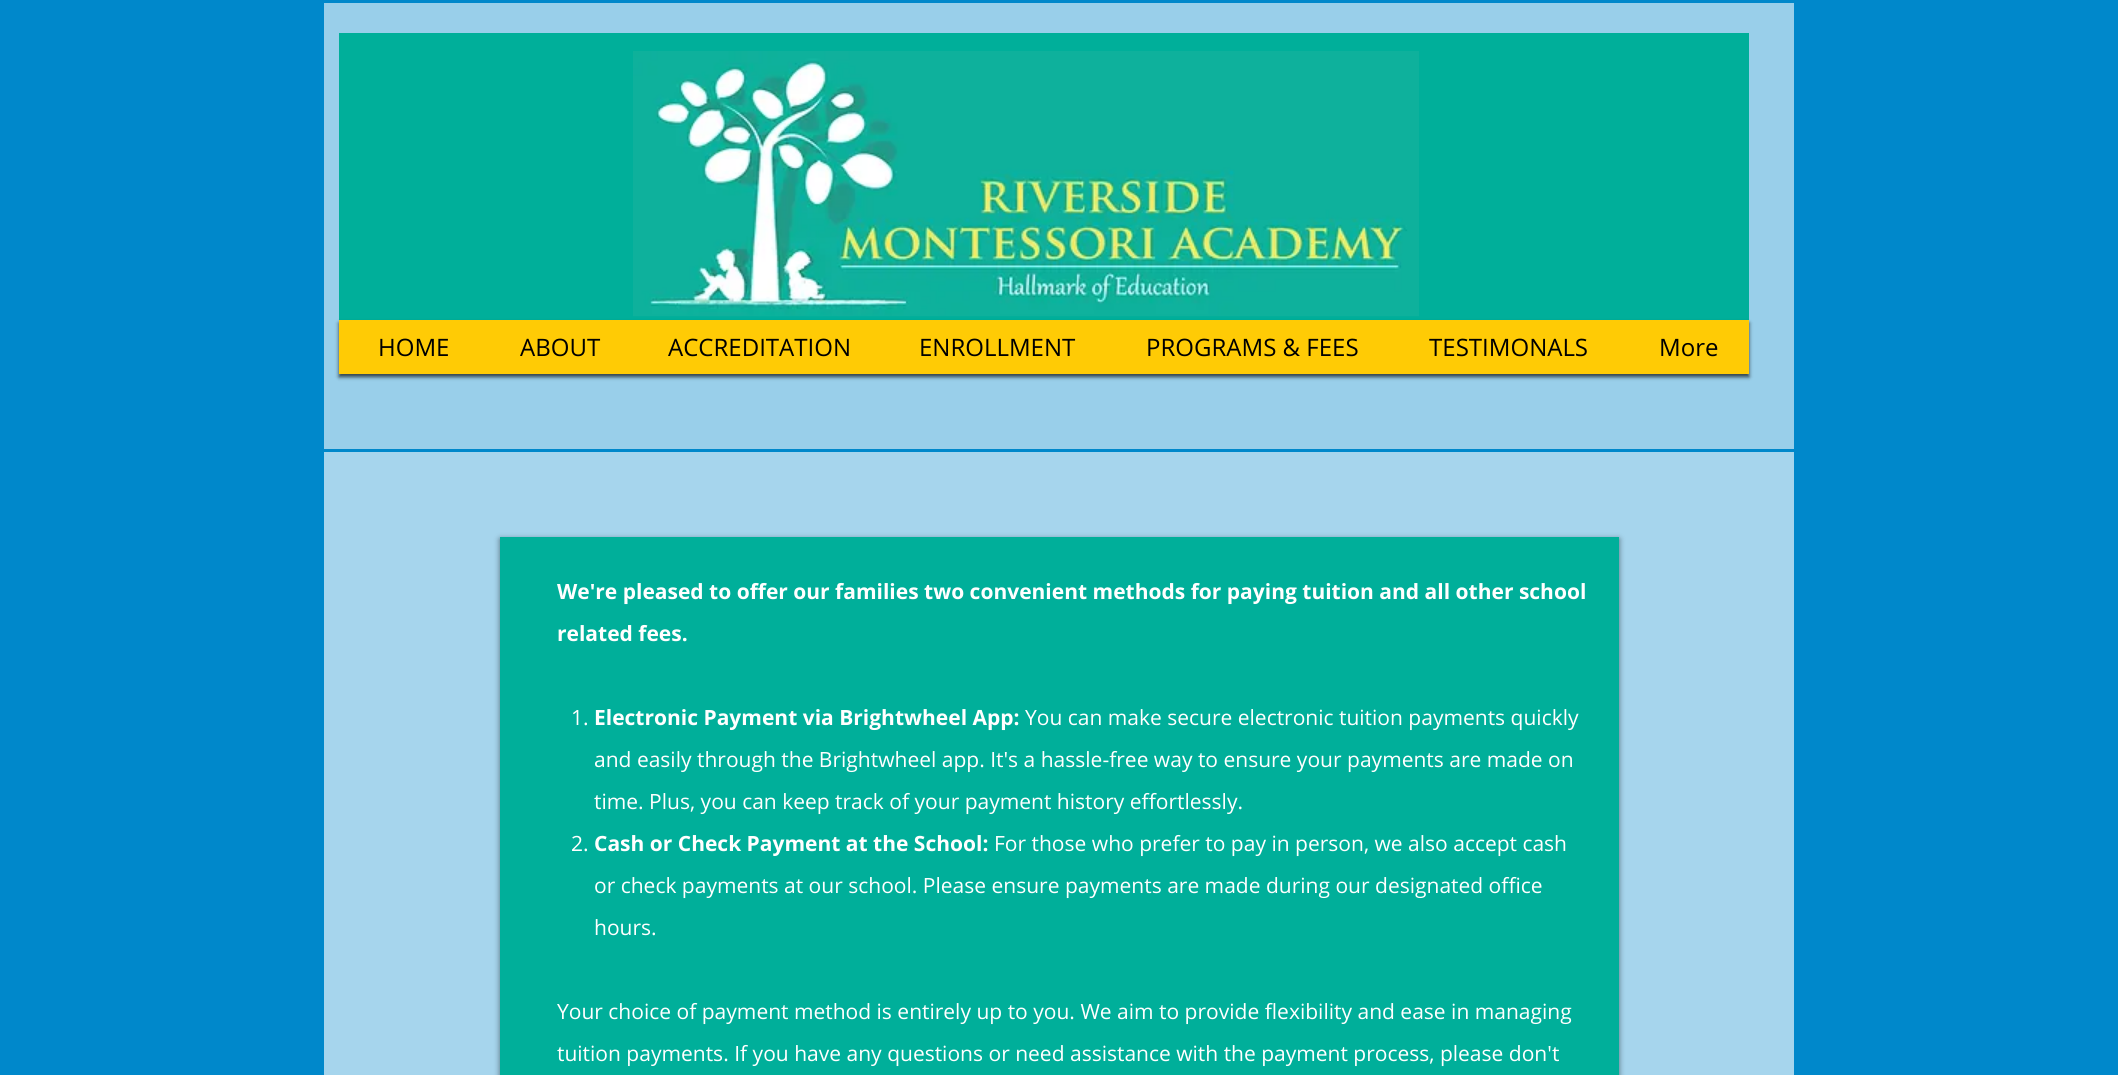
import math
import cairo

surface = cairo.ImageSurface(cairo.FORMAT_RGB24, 2118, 1075)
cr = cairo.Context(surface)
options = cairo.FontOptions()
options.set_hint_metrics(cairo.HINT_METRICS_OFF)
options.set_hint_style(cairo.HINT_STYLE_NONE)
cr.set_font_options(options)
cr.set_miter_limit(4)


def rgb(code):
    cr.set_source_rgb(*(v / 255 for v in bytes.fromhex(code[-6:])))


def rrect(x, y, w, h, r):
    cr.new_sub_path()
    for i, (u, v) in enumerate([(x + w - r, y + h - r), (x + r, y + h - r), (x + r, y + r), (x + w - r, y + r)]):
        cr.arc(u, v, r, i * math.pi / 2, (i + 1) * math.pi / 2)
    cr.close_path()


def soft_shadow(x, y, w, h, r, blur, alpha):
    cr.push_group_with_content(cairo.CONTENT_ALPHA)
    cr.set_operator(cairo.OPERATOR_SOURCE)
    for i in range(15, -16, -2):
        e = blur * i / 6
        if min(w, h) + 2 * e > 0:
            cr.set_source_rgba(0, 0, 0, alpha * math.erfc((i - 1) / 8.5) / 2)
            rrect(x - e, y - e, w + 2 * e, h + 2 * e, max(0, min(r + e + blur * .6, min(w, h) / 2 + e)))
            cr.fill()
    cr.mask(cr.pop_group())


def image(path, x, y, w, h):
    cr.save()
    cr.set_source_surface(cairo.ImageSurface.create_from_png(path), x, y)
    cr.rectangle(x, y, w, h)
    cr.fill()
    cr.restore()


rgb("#0088cb")
cr.paint()
rgb("#99cfea")
cr.rectangle(324, 3, 1470, 446)
cr.fill()
rgb("#00af9a")
cr.rectangle(339, 33, 1410, 287)
cr.fill()
image("img/1.png", 633, 51, 786, 266)
rgb("#000000")
soft_shadow(339, 323, 1410, 54, 0, 2, 0.7)
rgb("#ffcb05")
cr.rectangle(339, 320, 1410, 54)
cr.fill()
rgb("#a6d5ed")
cr.rectangle(324, 452, 1470, 623)
cr.fill()
rgb("#000000")
soft_shadow(500, 539, 1119, 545, 0, 3, 0.5)
rgb("#00af9a")
cr.rectangle(500, 537, 1119, 538)
cr.fill()
cr.select_font_face("Open Sans")
cr.set_font_size(24)
rgb("#000000")
for x, y, s in [
    (378, 356, "HOME"),
    (520, 356, "ABOUT"),
    (668, 356, "ACCREDITATION"),
    (919, 356, "ENROLLMENT"),
    (1146, 356, "PROGRAMS & FEES"),
    (1429, 356, "TESTIMONALS"),
    (1659, 356, "More"),
]:
    cr.move_to(x, y)
    cr.show_text(s)
cr.select_font_face("Open Sans", cairo.FONT_SLANT_NORMAL, cairo.FONT_WEIGHT_BOLD)
cr.set_font_size(21)
rgb("#ffffff")
cr.move_to(557, 599)
cr.show_text("We're pleased to offer our families two convenient methods for paying tuition and all other school")
cr.move_to(557, 641)
cr.show_text("related fees.")
cr.select_font_face("Open Sans")
cr.move_to(571, 725)
cr.show_text("1.")
cr.select_font_face("Open Sans", cairo.FONT_SLANT_NORMAL, cairo.FONT_WEIGHT_BOLD)
cr.move_to(594, 725)
cr.show_text("Electronic Payment via Brightwheel App:")
cr.select_font_face("Open Sans")
for x, y, s in [
    (1025, 725, "You can make secure electronic tuition payments quickly"),
    (594, 767, "and easily through the Brightwheel app. It's a hassle-free way to ensure your payments are made on"),
    (594, 809, "time. Plus, you can keep track of your payment history effortlessly."),
    (571, 851, "2."),
]:
    cr.move_to(x, y)
    cr.show_text(s)
cr.select_font_face("Open Sans", cairo.FONT_SLANT_NORMAL, cairo.FONT_WEIGHT_BOLD)
cr.move_to(594, 851)
cr.show_text("Cash or Check Payment at the School:")
cr.select_font_face("Open Sans")
for x, y, s in [
    (994, 851, "For those who prefer to pay in person, we also accept cash"),
    (594, 893, "or check payments at our school. Please ensure payments are made during our designated office"),
    (594, 935, "hours."),
    (557, 1019, "Your choice of payment method is entirely up to you. We aim to provide flexibility and ease in managing"),
    (557, 1061, "tuition payments. If you have any questions or need assistance with the payment process, please don't"),
]:
    cr.move_to(x, y)
    cr.show_text(s)
surface.write_to_png("page.png")
